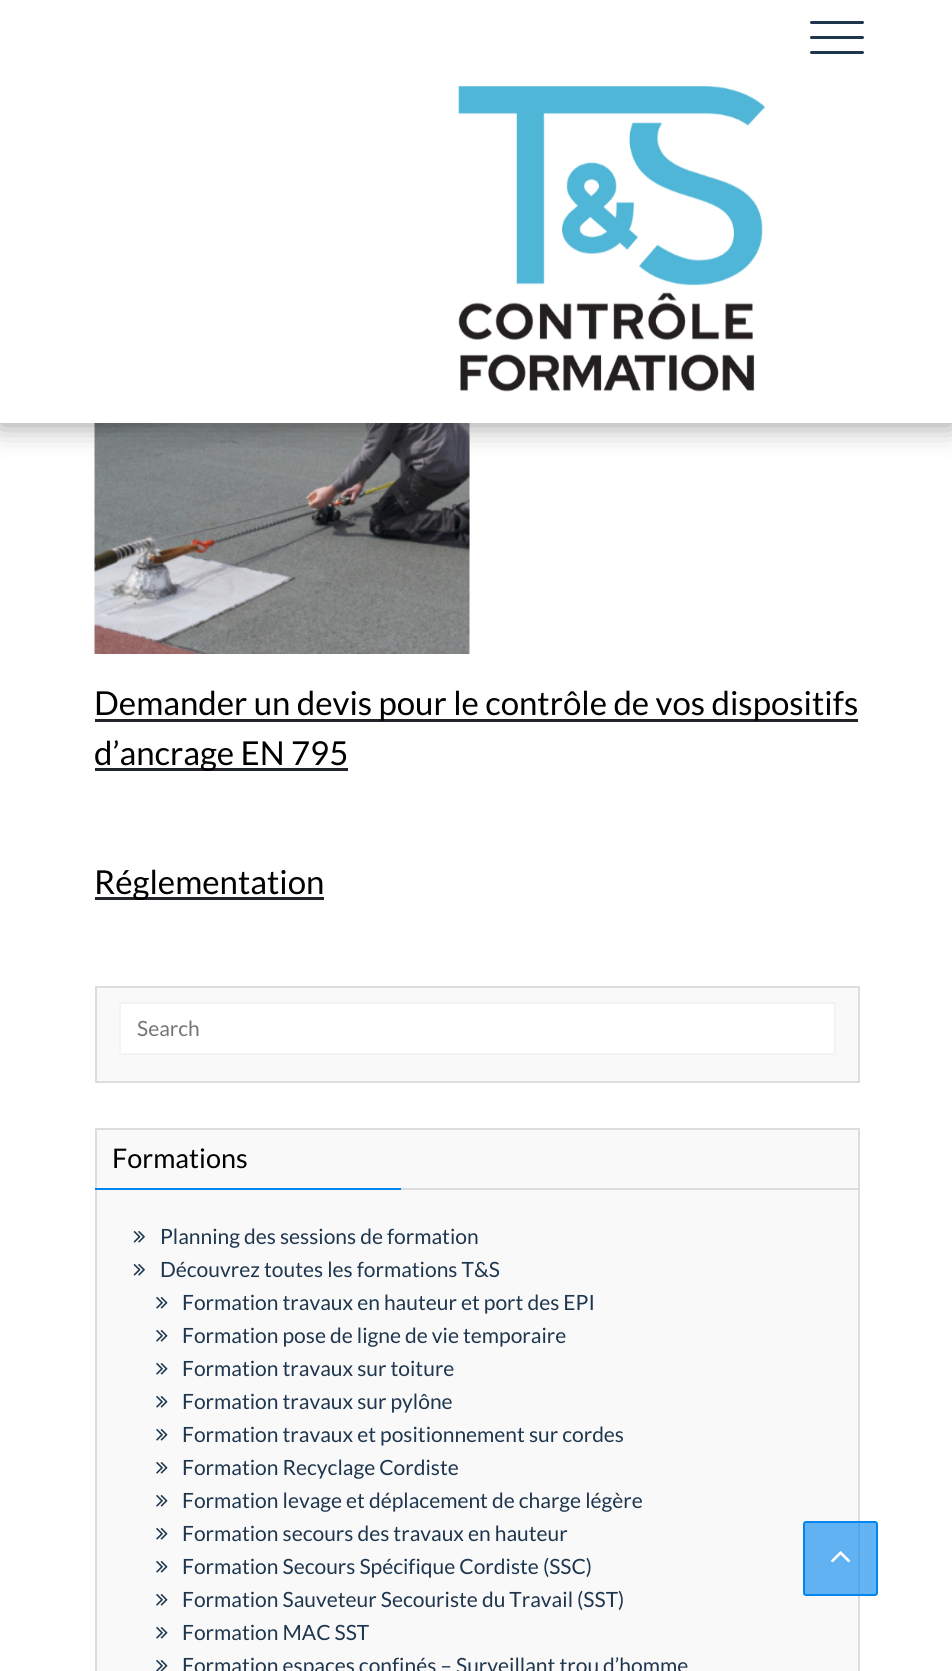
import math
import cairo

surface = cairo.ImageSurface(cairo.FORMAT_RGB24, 952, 1671)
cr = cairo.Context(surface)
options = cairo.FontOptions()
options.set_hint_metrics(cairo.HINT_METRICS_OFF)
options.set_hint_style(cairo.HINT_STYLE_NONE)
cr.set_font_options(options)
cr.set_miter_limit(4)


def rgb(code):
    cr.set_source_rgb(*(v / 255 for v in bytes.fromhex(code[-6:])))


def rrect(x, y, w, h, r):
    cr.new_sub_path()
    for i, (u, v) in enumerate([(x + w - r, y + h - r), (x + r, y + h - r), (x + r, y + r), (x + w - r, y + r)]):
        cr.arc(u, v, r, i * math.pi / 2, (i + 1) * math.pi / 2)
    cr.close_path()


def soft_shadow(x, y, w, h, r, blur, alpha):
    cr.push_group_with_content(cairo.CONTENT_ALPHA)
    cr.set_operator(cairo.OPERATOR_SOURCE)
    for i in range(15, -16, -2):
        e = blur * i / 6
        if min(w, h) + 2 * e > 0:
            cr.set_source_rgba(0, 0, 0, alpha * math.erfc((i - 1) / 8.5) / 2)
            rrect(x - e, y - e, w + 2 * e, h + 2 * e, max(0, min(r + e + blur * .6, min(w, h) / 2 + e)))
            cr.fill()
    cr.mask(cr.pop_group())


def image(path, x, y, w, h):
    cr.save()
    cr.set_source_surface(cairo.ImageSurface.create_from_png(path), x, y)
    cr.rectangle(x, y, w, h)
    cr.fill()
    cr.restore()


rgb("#ffffff")
cr.paint()
image("img/2.png", 94, 423, 376, 231)
rgb("#000000")
soft_shadow(0, 2, 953, 423, 0, 15, 0.4)
rgb("#ffffff")
cr.rectangle(0, 0, 952, 423)
cr.fill()
rgb("#1e354e")
rrect(810, 21, 54, 3, 1.5)
cr.fill()
rrect(810, 36, 54, 3, 1.5)
cr.fill()
rrect(810, 51, 54, 3, 1.5)
cr.fill()
image("img/1.png", 458, 86, 308, 306)
for x, y, w, h, color in [
    (95, 719, 763, 3, "#212529"),
    (95, 768, 253, 3, "#212529"),
    (95, 897, 229, 3, "#212529"),
]:
    rgb(color)
    cr.rectangle(x, y, w, h)
    cr.fill()
rgb("#f9f9f9")
cr.rectangle(96, 987, 763, 95)
cr.fill_preserve()
rgb("#dddddd")
cr.stroke()
rgb("#ffffff")
rrect(120, 1003, 715, 51, 0.5)
cr.fill_preserve()
rgb("#f3f3f3")
cr.stroke()
rgb("#f9f9f9")
cr.rectangle(96, 1129, 763, 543)
cr.fill_preserve()
rgb("#dddddd")
cr.stroke()
rgb("#0186f0")
cr.rectangle(95, 1188, 306, 2)
cr.fill()
rgb("#dddddd")
cr.rectangle(401, 1188, 459, 2)
cr.fill()
image("img/3.png", 133, 1231, 12, 12)
image("img/3.png", 133, 1264, 12, 12)
image("img/4.png", 156, 1297, 12, 12)
image("img/4.png", 156, 1330, 12, 12)
image("img/4.png", 156, 1363, 12, 12)
image("img/4.png", 156, 1396, 12, 12)
image("img/4.png", 156, 1429, 12, 12)
image("img/4.png", 156, 1462, 12, 12)
image("img/4.png", 156, 1495, 12, 12)
image("img/4.png", 156, 1528, 12, 12)
image("img/4.png", 156, 1561, 12, 12)
image("img/4.png", 156, 1594, 12, 12)
image("img/4.png", 156, 1627, 12, 12)
image("img/5.png", 156, 1660, 12, 11)
cr.set_source_rgba(0.004, 0.525, 0.941, 0.61)
rrect(804, 1522, 73, 73, 2)
cr.fill_preserve()
rgb("#0186f0")
cr.stroke()
image("img/6.png", 831, 1551, 20, 12)
cr.select_font_face("Lato")
cr.set_font_size(33)
rgb("#000000")
for x, y, s in [
    (94, 715, "Demander un devis pour le contrôle de vos dispositifs"),
    (94, 765, "d’ancrage EN 795"),
    (94, 894, "Réglementation"),
]:
    cr.move_to(x, y)
    cr.show_text(s)
cr.set_font_size(21)
rgb("#757575")
cr.move_to(137, 1036)
cr.show_text("Search")
cr.set_font_size(27)
rgb("#000000")
cr.move_to(112, 1168)
cr.show_text("Formations")
cr.set_font_size(21)
rgb("#1e364e")
for x, y, s in [
    (160, 1244, "Planning des sessions de formation"),
    (160, 1277, "Découvrez toutes les formations T&S"),
    (182, 1310, "Formation travaux en hauteur et port des EPI"),
    (182, 1343, "Formation pose de ligne de vie temporaire"),
    (182, 1376, "Formation travaux sur toiture"),
    (182, 1409, "Formation travaux sur pylône"),
    (182, 1442, "Formation travaux et positionnement sur cordes"),
    (182, 1475, "Formation Recyclage Cordiste"),
    (182, 1508, "Formation levage et déplacement de charge légère"),
    (182, 1541, "Formation secours des travaux en hauteur"),
    (182, 1574, "Formation Secours Spécifique Cordiste (SSC)"),
    (182, 1607, "Formation Sauveteur Secouriste du Travail (SST)"),
    (182, 1640, "Formation MAC SST"),
    (182, 1673, "Formation espaces confinés – Surveillant trou d’homme"),
]:
    cr.move_to(x, y)
    cr.show_text(s)
surface.write_to_png("page.png")
